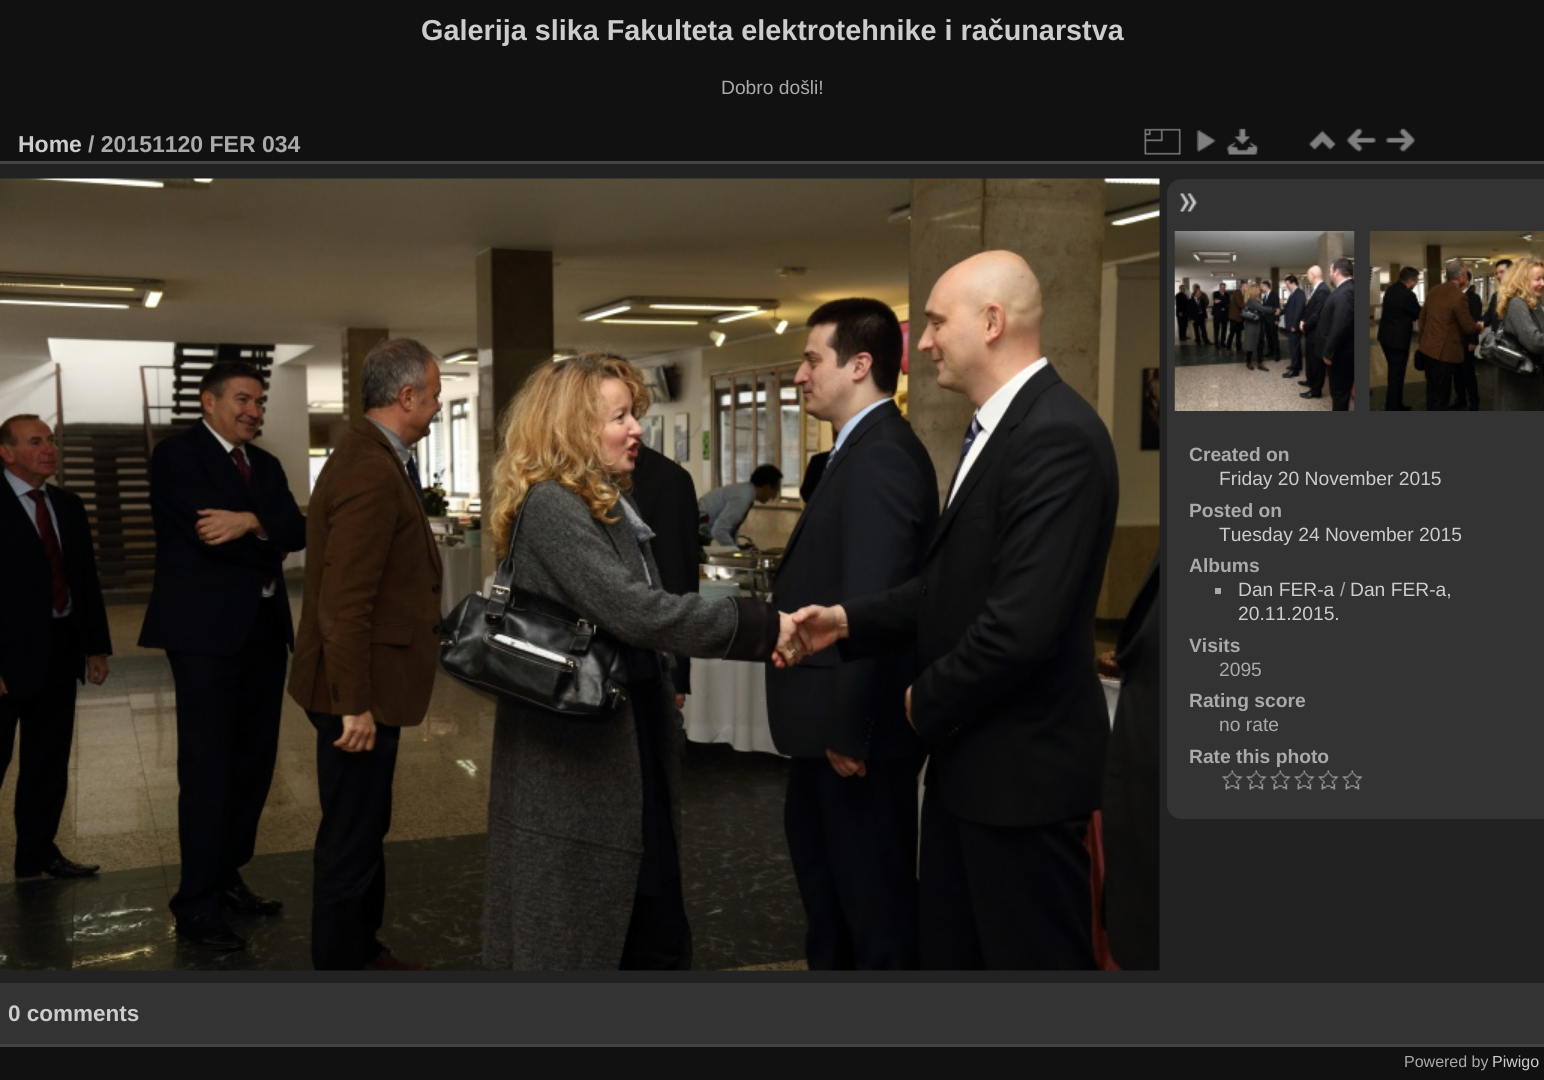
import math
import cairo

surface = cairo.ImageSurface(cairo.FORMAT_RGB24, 1544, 1080)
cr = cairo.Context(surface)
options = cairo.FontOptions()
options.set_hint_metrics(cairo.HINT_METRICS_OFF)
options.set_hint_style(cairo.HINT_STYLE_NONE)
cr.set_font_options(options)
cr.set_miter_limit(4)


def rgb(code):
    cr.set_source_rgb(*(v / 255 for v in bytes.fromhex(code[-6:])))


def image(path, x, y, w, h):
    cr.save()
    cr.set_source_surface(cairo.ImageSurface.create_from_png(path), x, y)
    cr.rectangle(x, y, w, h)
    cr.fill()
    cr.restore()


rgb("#111111")
cr.paint()
for x, y, w, h, color in [
    (0, 164, 1544, 819, "#222222"),
    (0, 1044, 1544, 3, "#444444"),
    (0, 161, 1544, 3, "#444444"),
]:
    rgb(color)
    cr.rectangle(x, y, w, h)
    cr.fill()
image("img/1.png", 1144, 128, 37, 27)
image("img/2.png", 1196, 130, 20, 22)
image("img/3.png", 1226, 128, 33, 27)
image("img/4.png", 1309, 130, 27, 21)
image("img/5.png", 1346, 128, 30, 24)
image("img/6.png", 1385, 128, 30, 24)
image("img/7.png", 0, 178, 1160, 793)
rgb("#333333")
cr.new_path()
cr.move_to(1182, 179)
cr.line_to(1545, 179)
cr.line_to(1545, 819)
cr.line_to(1182, 819)
cr.curve_to(1173.5, 819, 1167, 812.5, 1167, 804)
cr.line_to(1167, 194)
cr.curve_to(1167, 185.5, 1173.5, 179, 1182, 179)
cr.close_path()
cr.fill()
image("img/8.png", 1179, 193, 19, 19)
image("img/9.png", 1174, 231, 181, 180)
image("img/10.png", 1369, 231, 175, 180)
rgb("#aaaaaa")
cr.rectangle(1215, 588, 6, 6)
cr.fill()
image("img/11.png", 1222, 770, 21, 20)
image("img/11.png", 1246, 770, 21, 20)
image("img/11.png", 1270, 770, 21, 20)
image("img/12.png", 1294, 770, 21, 20)
image("img/12.png", 1318, 770, 21, 20)
image("img/12.png", 1342, 770, 21, 20)
rgb("#333333")
cr.rectangle(0, 983, 1544, 61)
cr.fill()
cr.select_font_face("Liberation Sans", cairo.FONT_SLANT_NORMAL, cairo.FONT_WEIGHT_BOLD)
cr.set_font_size(28.8)
rgb("#cccccc")
cr.move_to(421, 40)
cr.show_text("Galerija slika Fakulteta elektrotehnike i računarstva")
cr.select_font_face("Liberation Sans")
cr.set_font_size(19.25)
rgb("#aaaaaa")
cr.move_to(721, 94)
cr.show_text("Dobro došli!")
cr.select_font_face("Liberation Sans", cairo.FONT_SLANT_NORMAL, cairo.FONT_WEIGHT_BOLD)
cr.set_font_size(23)
rgb("#cccccc")
cr.move_to(18, 152)
cr.show_text("Home")
rgb("#aaaaaa")
cr.move_to(88, 152)
cr.show_text("/ 20151120 FER 034")
cr.set_font_size(19.25)
cr.move_to(1189, 461)
cr.show_text("Created on")
cr.select_font_face("Liberation Sans")
rgb("#cccccc")
cr.move_to(1219, 485)
cr.show_text("Friday 20 November 2015")
cr.select_font_face("Liberation Sans", cairo.FONT_SLANT_NORMAL, cairo.FONT_WEIGHT_BOLD)
rgb("#aaaaaa")
cr.move_to(1189, 517)
cr.show_text("Posted on")
cr.select_font_face("Liberation Sans")
rgb("#cccccc")
cr.move_to(1219, 541)
cr.show_text("Tuesday 24 November 2015")
cr.select_font_face("Liberation Sans", cairo.FONT_SLANT_NORMAL, cairo.FONT_WEIGHT_BOLD)
rgb("#aaaaaa")
cr.move_to(1189, 572)
cr.show_text("Albums")
cr.select_font_face("Liberation Sans")
rgb("#cccccc")
cr.move_to(1238, 596)
cr.show_text("Dan FER-a")
rgb("#aaaaaa")
cr.move_to(1340, 596)
cr.show_text("/")
rgb("#cccccc")
cr.move_to(1350, 596)
cr.show_text("Dan FER-a,")
cr.move_to(1238, 620)
cr.show_text("20.11.2015.")
cr.select_font_face("Liberation Sans", cairo.FONT_SLANT_NORMAL, cairo.FONT_WEIGHT_BOLD)
rgb("#aaaaaa")
cr.move_to(1189, 652)
cr.show_text("Visits")
cr.select_font_face("Liberation Sans")
cr.move_to(1219, 676)
cr.show_text("2095")
cr.select_font_face("Liberation Sans", cairo.FONT_SLANT_NORMAL, cairo.FONT_WEIGHT_BOLD)
cr.move_to(1189, 707)
cr.show_text("Rating score")
cr.select_font_face("Liberation Sans")
cr.move_to(1219, 731)
cr.show_text("no rate")
cr.select_font_face("Liberation Sans", cairo.FONT_SLANT_NORMAL, cairo.FONT_WEIGHT_BOLD)
cr.move_to(1189, 763)
cr.show_text("Rate this photo")
cr.set_font_size(22.5)
rgb("#cccccc")
cr.move_to(8, 1021)
cr.show_text("0 comments")
cr.select_font_face("Liberation Sans")
cr.set_font_size(16)
rgb("#aaaaaa")
cr.move_to(1404, 1067)
cr.show_text("Powered by")
rgb("#cccccc")
cr.move_to(1492, 1067)
cr.show_text("Piwigo")
surface.write_to_png("page.png")
